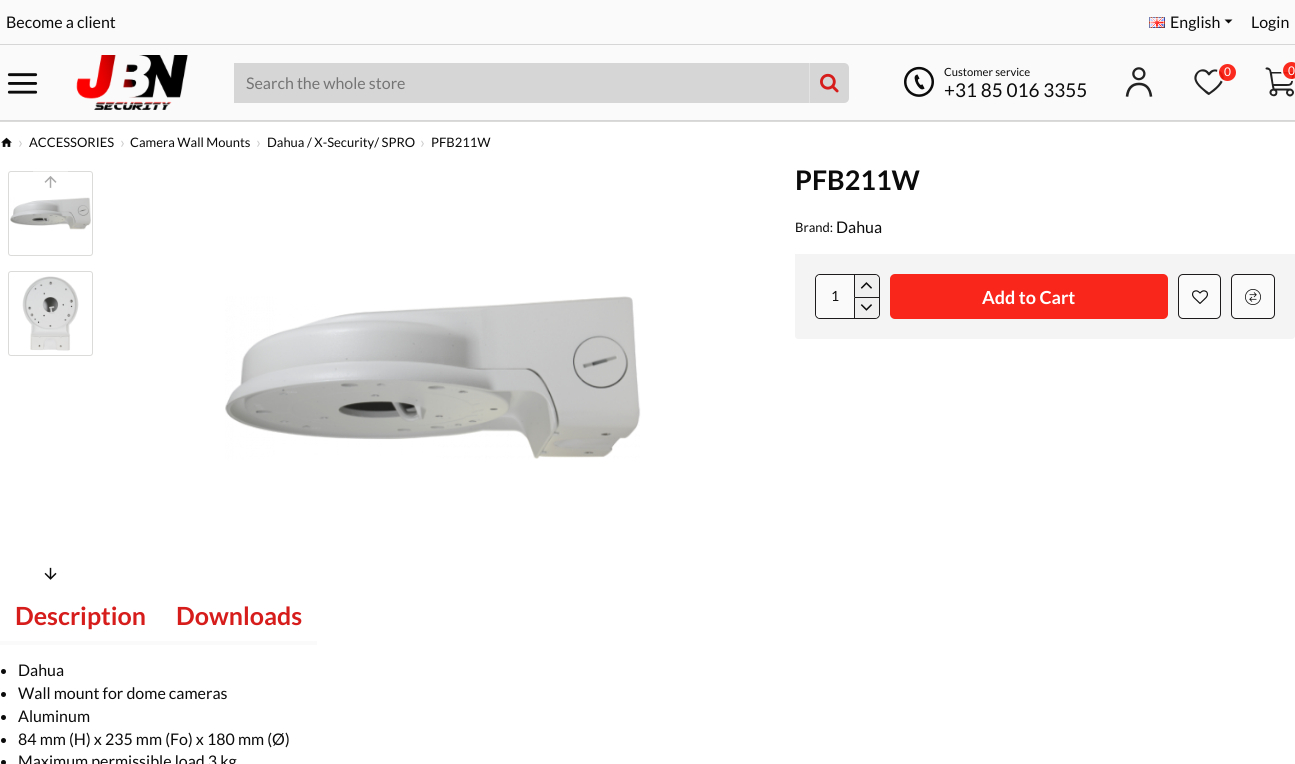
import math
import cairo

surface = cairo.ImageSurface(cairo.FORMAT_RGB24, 1295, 764)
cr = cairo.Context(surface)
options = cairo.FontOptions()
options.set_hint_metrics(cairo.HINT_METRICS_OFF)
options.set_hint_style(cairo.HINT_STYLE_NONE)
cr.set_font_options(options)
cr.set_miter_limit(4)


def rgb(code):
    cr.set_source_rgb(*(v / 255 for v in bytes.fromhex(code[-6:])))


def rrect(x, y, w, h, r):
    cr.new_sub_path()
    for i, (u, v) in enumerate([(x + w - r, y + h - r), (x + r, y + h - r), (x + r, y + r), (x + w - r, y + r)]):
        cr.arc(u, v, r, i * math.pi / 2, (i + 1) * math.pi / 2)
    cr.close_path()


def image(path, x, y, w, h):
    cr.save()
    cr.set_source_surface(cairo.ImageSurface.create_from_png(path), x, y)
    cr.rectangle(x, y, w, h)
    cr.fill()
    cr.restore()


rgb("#ffffff")
cr.paint()
rgb("#fbfafa")
cr.rectangle(0, 0, 1295, 120)
cr.fill()
rgb("#d7d6d6")
cr.rectangle(0, 120, 1295, 1)
cr.fill()
image("img/1.png", 1149, 17, 16, 11)
rgb("#0b0b0b")
cr.new_path()
cr.move_to(1224.5, 19.5)
cr.line_to(1232.5, 19.5)
cr.line_to(1228.5, 23.5)
cr.close_path()
cr.fill()
rgb("#d7d6d6")
cr.rectangle(0, 44, 1295, 1)
cr.fill()
image("img/2.png", 7, 73, 31, 21)
image("img/3.png", 76, 55, 112, 55)
cr.rectangle(234, 63, 575, 40)
cr.fill()
cr.new_path()
cr.move_to(810, 63)
cr.line_to(844, 63)
cr.curve_to(847, 63, 849, 65, 849, 68)
cr.line_to(849, 98)
cr.curve_to(849, 101, 847, 103, 844, 103)
cr.line_to(810, 103)
cr.close_path()
cr.fill()
rgb("#e3e3e3")
cr.rectangle(809, 63, 1, 40)
cr.fill()
image("img/4.png", 820, 73, 19, 20)
image("img/5.png", 904, 66, 30, 31)
image("img/6.png", 1125, 67, 28, 30)
rgb("#222222")
cr.set_fill_rule(cairo.FILL_RULE_EVEN_ODD)
cr.new_path()
cr.move_to(1220, 71)
cr.curve_to(1228.5, 78, 1220.5, 86, 1214.5, 91)
cr.line_to(1209, 95)
cr.curve_to(1207.5, 95, 1204, 91.5, 1203, 90.5)
cr.curve_to(1200, 88, 1196.5, 85, 1195, 81)
cr.curve_to(1191.5, 73, 1203, 64.5, 1209, 72.5)
cr.curve_to(1211.5, 69, 1216.5, 68.5, 1220, 71)
cr.close_path()
cr.move_to(1220.5, 81)
cr.curve_to(1222.5, 78, 1221, 73.5, 1217.5, 72)
cr.curve_to(1212, 69.5, 1210.5, 75.5, 1209, 75.5)
cr.curve_to(1207.5, 75.5, 1207, 71.5, 1203, 71.5)
cr.curve_to(1200.5, 71, 1198.5, 72.5, 1197.5, 74.5)
cr.curve_to(1197, 75.5, 1196.5, 77, 1196.5, 78.5)
cr.curve_to(1197, 84, 1205.5, 90, 1209, 92.5)
cr.curve_to(1213, 89.5, 1218, 86, 1220.5, 81)
cr.close_path()
cr.fill()
cr.set_source_rgba(0.98, 0.082, 0.031, 0.91)
cr.arc(1227.5, 72.5, 9.5, 0, 2 * math.pi)
cr.fill_preserve()
rgb("#fbfafa")
cr.stroke()
rgb("#222222")
cr.new_path()
cr.move_to(1269.5, 71.5)
cr.curve_to(1269, 68.5, 1265.5, 70.5, 1265.5, 68.5)
cr.curve_to(1265.5, 66.5, 1271, 67, 1271.5, 72)
cr.line_to(1290, 72)
cr.curve_to(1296, 72, 1295, 71.5, 1293.5, 77.5)
cr.curve_to(1292.5, 84, 1293, 86, 1286, 86)
cr.line_to(1274, 86)
cr.line_to(1274.5, 88.5)
cr.line_to(1290, 88.5)
cr.curve_to(1292, 88.5, 1294, 90.5, 1294, 92.5)
cr.curve_to(1294, 94.5, 1292, 96.5, 1290, 96.5)
cr.curve_to(1288, 96.5, 1286, 94.5, 1286, 92.5)
cr.line_to(1286.5, 90.5)
cr.line_to(1277, 90.5)
cr.curve_to(1277.5, 91.5, 1277.5, 93, 1277, 94.5)
cr.curve_to(1274.5, 98.5, 1267.5, 95, 1270, 90.5)
cr.curve_to(1270.5, 89.5, 1271.5, 89, 1272.5, 89)
cr.close_path()
cr.move_to(1292.5, 73.5)
cr.line_to(1272, 73.5)
cr.line_to(1273.5, 84)
cr.line_to(1288.5, 84)
cr.curve_to(1289.5, 84, 1290.5, 83, 1291, 82)
cr.close_path()
cr.move_to(1275.5, 92.5)
cr.curve_to(1275.5, 90, 1271.5, 90, 1271.5, 92.5)
cr.curve_to(1271.5, 95, 1275.5, 95, 1275.5, 92.5)
cr.close_path()
cr.move_to(1292, 92.5)
cr.curve_to(1292, 90, 1288, 90, 1288, 92.5)
cr.curve_to(1288, 95, 1292, 95, 1292, 92.5)
cr.close_path()
cr.fill()
cr.set_source_rgba(0.98, 0.082, 0.031, 0.91)
cr.arc(1291.5, 70.5, 9.5, 0, 2 * math.pi)
cr.fill_preserve()
rgb("#fbfafa")
cr.stroke()
rgb("#dbdbda")
cr.rectangle(0, 121, 1295, 1)
cr.fill()
image("img/7.png", 1, 137, 11, 10)
rrect(8.5, 171.5, 84, 84, 2.5)
cr.set_line_width(1)
cr.stroke()
image("img/8.png", 10, 197, 81, 33)
rrect(8.5, 271.5, 84, 84, 2.5)
cr.stroke()
image("img/9.png", 22, 276, 57, 75)
cr.set_source_rgba(1, 1, 1, 0.35)
cr.rectangle(33, 171, 35, 1)
cr.fill()
image("img/10.png", 44, 176, 13, 12)
image("img/11.png", 44, 567, 13, 13)
image("img/12.png", 225, 296, 416, 163)
rgb("#f4f4f4")
cr.new_path()
cr.move_to(795, 254)
cr.line_to(1295, 254)
cr.line_to(1295, 336)
cr.curve_to(1295, 337.5, 1293.5, 339, 1292, 339)
cr.line_to(798, 339)
cr.curve_to(796.5, 339, 795, 337.5, 795, 336)
cr.close_path()
cr.fill()
rrect(815.5, 274.5, 64, 44, 4.5)
rgb("#1d1b1b")
cr.stroke()
rgb("#fbfafa")
cr.new_path()
cr.move_to(820, 275)
cr.line_to(854, 275)
cr.line_to(854, 318)
cr.line_to(820, 318)
cr.curve_to(818, 318, 816, 316, 816, 314)
cr.line_to(816, 279)
cr.curve_to(816, 277, 818, 275, 820, 275)
cr.close_path()
cr.fill()
rgb("#efefef")
cr.new_path()
cr.move_to(854, 275)
cr.line_to(875, 275)
cr.curve_to(877, 275, 879, 277, 879, 279)
cr.line_to(879, 297)
cr.line_to(854, 297)
cr.close_path()
cr.fill()
rgb("#1d1b1b")
cr.rectangle(854, 275, 1, 22)
cr.fill()
image("img/13.png", 860, 282, 12, 7)
rgb("#efefef")
cr.new_path()
cr.move_to(854, 297)
cr.line_to(879, 297)
cr.line_to(879, 314)
cr.curve_to(879, 316, 877, 318, 875, 318)
cr.line_to(854, 318)
cr.close_path()
cr.fill()
rgb("#1d1b1b")
cr.set_fill_rule(cairo.FILL_RULE_WINDING)
cr.new_path()
cr.move_to(854, 297)
cr.line_to(879, 297)
cr.line_to(879, 298)
cr.line_to(855, 298)
cr.close_path()
cr.fill()
cr.set_source_rgba(0.106, 0.098, 0.098, 0.99)
cr.new_path()
cr.move_to(854, 318)
cr.line_to(854, 297)
cr.line_to(855, 298)
cr.line_to(855, 318)
cr.close_path()
cr.fill()
image("img/14.png", 860, 304, 12, 7)
rgb("#f9261b")
rrect(890, 274, 278, 45, 5)
cr.fill()
rgb("#fbfafa")
rrect(1178, 274, 43, 45, 5)
cr.fill()
rrect(1178.5, 274.5, 42, 44, 4.5)
cr.set_source_rgba(0.106, 0.098, 0.098, 0.99)
cr.stroke()
image("img/15.png", 1192, 290, 16, 14)
rgb("#fbfafa")
rrect(1231, 274, 44, 45, 5)
cr.fill()
rrect(1231.5, 274.5, 43, 44, 4.5)
cr.set_source_rgba(0.106, 0.098, 0.098, 0.99)
cr.stroke()
image("img/16.png", 1245, 289, 16, 16)
rgb("#fbfafa")
cr.rectangle(0, 641, 317, 4)
cr.fill()
rgb("#0b0b0b")
cr.arc(3.5, 671.5, 2.5, 0, 2 * math.pi)
cr.fill()
cr.arc(3.5, 694.5, 2.5, 0, 2 * math.pi)
cr.fill()
cr.arc(3.5, 717.5, 2.5, 0, 2 * math.pi)
cr.fill()
cr.arc(3.5, 740.5, 2.5, 0, 2 * math.pi)
cr.fill()
cr.arc(3.5, 762.5, 2.5, 0, 2 * math.pi)
cr.fill()
cr.select_font_face("Lato")
cr.set_font_size(16)
for x, y, s in [
    (6, 28, "Become a client"),
    (1170, 28, "English"),
    (1251, 28, "Login"),
]:
    cr.move_to(x, y)
    cr.show_text(s)
rgb("#757575")
cr.move_to(246, 89)
cr.show_text("Search the whole store")
cr.set_font_size(11.25)
rgb("#0b0b0b")
cr.move_to(944, 76)
cr.show_text("Customer service")
cr.set_font_size(19)
cr.move_to(944, 97)
cr.show_text("+31 85 016 3355")
cr.set_font_size(12)
rgb("#ffffff")
cr.move_to(1224, 76)
cr.show_text("0")
cr.move_to(1288, 75)
cr.show_text("0")
cr.set_font_size(16)
rgb("#cccccc")
cr.move_to(18, 148)
cr.show_text("›")
cr.set_font_size(13)
rgb("#0b0b0b")
cr.move_to(29, 147)
cr.show_text("ACCESSORIES")
cr.set_font_size(16)
rgb("#cccccc")
cr.move_to(120, 148)
cr.show_text("›")
cr.set_font_size(13)
rgb("#0b0b0b")
cr.move_to(130, 147)
cr.show_text("Camera Wall Mounts")
cr.set_font_size(16)
rgb("#cccccc")
cr.move_to(256, 148)
cr.show_text("›")
cr.set_font_size(13)
rgb("#0b0b0b")
cr.move_to(267, 147)
cr.show_text("Dahua / X-Security/ SPRO")
cr.set_font_size(16)
rgb("#cccccc")
cr.move_to(420, 148)
cr.show_text("›")
cr.set_font_size(13)
rgb("#0b0b0b")
cr.move_to(431, 147)
cr.show_text("PFB211W")
cr.select_font_face("Lato", cairo.FONT_SLANT_NORMAL, cairo.FONT_WEIGHT_BOLD)
cr.set_font_size(27)
cr.move_to(795, 190)
cr.show_text("PFB211W")
cr.select_font_face("Lato")
cr.set_font_size(13)
cr.move_to(795, 232)
cr.show_text("Brand:")
cr.set_font_size(16)
cr.move_to(836, 233)
cr.show_text("Dahua")
cr.set_font_size(14)
cr.move_to(831, 301)
cr.show_text("1")
cr.select_font_face("Lato", cairo.FONT_SLANT_NORMAL, cairo.FONT_WEIGHT_BOLD)
cr.set_font_size(18)
rgb("#ffffff")
cr.move_to(982, 304)
cr.show_text("Add to Cart")
cr.set_font_size(25)
rgb("#d71c1c")
cr.move_to(15, 625)
cr.show_text("Description")
cr.move_to(176, 625)
cr.show_text("Downloads")
cr.select_font_face("Lato")
cr.set_font_size(16)
rgb("#0b0b0b")
for x, y, s in [
    (18, 676, "Dahua"),
    (18, 699, "Wall mount for dome cameras"),
    (18, 722, "Aluminum"),
    (18, 745, "84 mm (H) x 235 mm (Fo) x 180 mm (Ø)"),
    (18, 767, "Maximum permissible load 3 kg"),
]:
    cr.move_to(x, y)
    cr.show_text(s)
surface.write_to_png("page.png")
